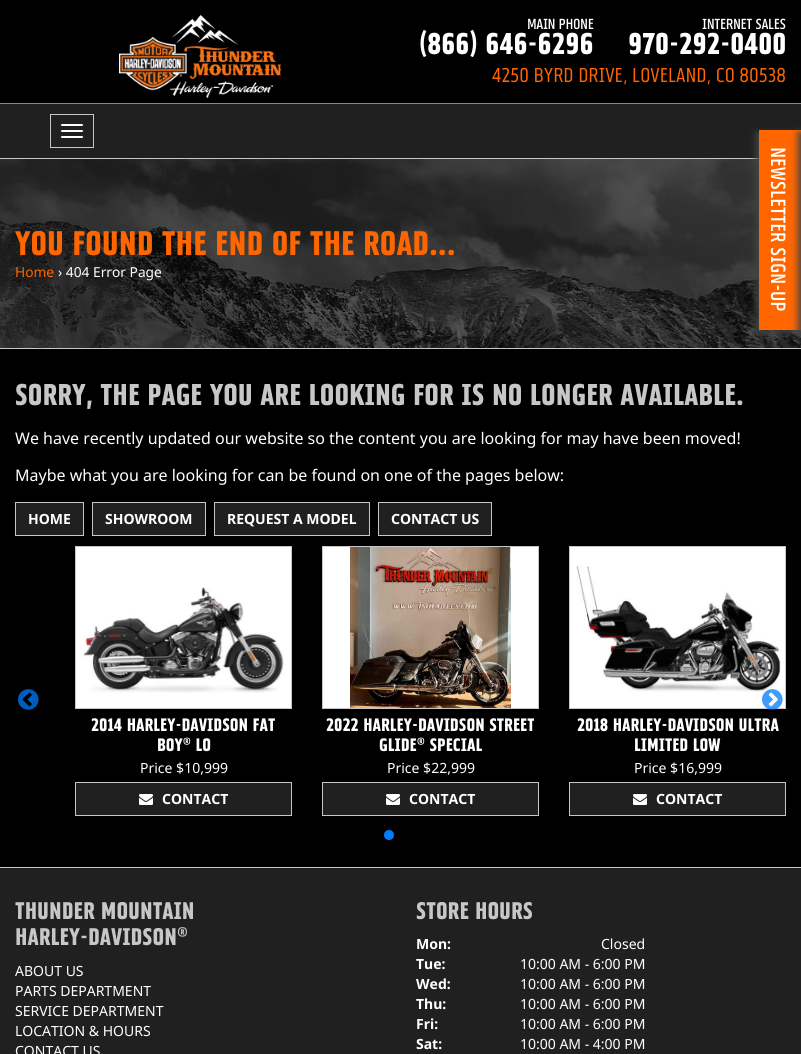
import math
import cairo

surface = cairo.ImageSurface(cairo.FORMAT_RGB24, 801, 1054)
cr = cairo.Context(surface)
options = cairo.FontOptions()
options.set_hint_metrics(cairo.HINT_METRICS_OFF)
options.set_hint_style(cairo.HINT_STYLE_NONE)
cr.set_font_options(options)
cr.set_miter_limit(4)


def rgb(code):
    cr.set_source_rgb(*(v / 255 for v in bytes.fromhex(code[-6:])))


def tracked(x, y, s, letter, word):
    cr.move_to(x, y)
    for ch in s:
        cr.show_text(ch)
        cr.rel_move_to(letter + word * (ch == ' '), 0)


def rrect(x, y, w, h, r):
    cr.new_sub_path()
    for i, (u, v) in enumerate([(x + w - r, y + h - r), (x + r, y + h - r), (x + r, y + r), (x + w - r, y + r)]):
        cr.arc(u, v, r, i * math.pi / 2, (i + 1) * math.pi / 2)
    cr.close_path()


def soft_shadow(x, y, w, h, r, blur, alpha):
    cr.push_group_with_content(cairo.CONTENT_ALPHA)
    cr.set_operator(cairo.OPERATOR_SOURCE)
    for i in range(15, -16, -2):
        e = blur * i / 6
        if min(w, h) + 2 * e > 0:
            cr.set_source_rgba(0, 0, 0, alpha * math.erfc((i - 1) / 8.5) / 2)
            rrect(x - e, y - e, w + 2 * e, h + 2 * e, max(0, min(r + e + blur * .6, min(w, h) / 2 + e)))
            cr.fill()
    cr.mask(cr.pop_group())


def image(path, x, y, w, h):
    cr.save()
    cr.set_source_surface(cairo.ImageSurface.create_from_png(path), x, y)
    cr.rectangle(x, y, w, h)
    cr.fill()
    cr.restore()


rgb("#000000")
cr.paint()
image("img/1.png", 119, 15, 162, 84)
for x, y, w, h, color in [
    (0, 104, 801, 54, "#202020"),
    (0, 103, 801, 1, "#ff6600"),
    (0, 158, 759, 1, "#c7c7c7"),
]:
    rgb(color)
    cr.rectangle(x, y, w, h)
    cr.fill()
cr.rectangle(50.5, 114.5, 43, 33)
cr.set_line_width(1)
cr.stroke()
rgb("#ffffff")
rrect(61, 124, 22, 2, 1)
cr.fill()
rrect(61, 130, 22, 2, 1)
cr.fill()
rrect(61, 136, 22, 2, 1)
cr.fill()
image("img/2.png", 0, 159, 801, 189)
rgb("#c7c7c7")
cr.rectangle(0, 348, 801, 1)
cr.fill()
rgb("#444444")
soft_shadow(756, 133, 42, 200, 0, 3.5, 1)
rgb("#ff6600")
cr.rectangle(759, 130, 42, 200)
cr.fill()
rgb("#444444")
soft_shadow(798, 133, 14, 200, 0, 3.5, 1)
rgb("#202020")
cr.rectangle(15.5, 502.5, 68, 33)
cr.fill_preserve()
rgb("#c7c7c7")
cr.stroke()
rgb("#202020")
cr.rectangle(92.5, 502.5, 113, 33)
cr.fill_preserve()
rgb("#c7c7c7")
cr.stroke()
rgb("#202020")
cr.rectangle(214.5, 502.5, 155, 33)
cr.fill_preserve()
rgb("#c7c7c7")
cr.stroke()
rgb("#202020")
cr.rectangle(378.5, 502.5, 113, 33)
cr.fill_preserve()
rgb("#c7c7c7")
cr.stroke()
image("img/3.png", 18, 689, 21, 21)
rgb("#ffffff")
cr.rectangle(569.5, 546.5, 216, 162)
cr.fill_preserve()
rgb("#c7c7c7")
cr.stroke()
image("img/8.png", 576, 566, 205, 126)
image("img/4.png", 762, 689, 21, 21)
rgb("#ffffff")
cr.rectangle(75.5, 546.5, 216, 162)
cr.fill_preserve()
rgb("#c7c7c7")
cr.stroke()
image("img/5.png", 83, 587, 201, 106)
rgb("#202020")
cr.rectangle(75.5, 782.5, 216, 33)
cr.fill_preserve()
rgb("#c7c7c7")
cr.stroke()
image("img/6.png", 139, 794, 14, 11)
rgb("#ffffff")
cr.rectangle(322.5, 546.5, 216, 162)
cr.fill_preserve()
rgb("#c7c7c7")
cr.stroke()
image("img/7.png", 350, 547, 161, 161)
rgb("#202020")
cr.rectangle(322.5, 782.5, 216, 33)
cr.fill_preserve()
rgb("#c7c7c7")
cr.stroke()
image("img/6.png", 386, 794, 14, 11)
rgb("#202020")
cr.rectangle(569.5, 782.5, 216, 33)
cr.fill_preserve()
rgb("#c7c7c7")
cr.stroke()
image("img/6.png", 633, 794, 14, 11)
rgb("#007aff")
cr.arc(389, 835, 5, 0, 2 * math.pi)
cr.fill()
rgb("#202020")
cr.rectangle(0, 868, 801, 186)
cr.fill()
rgb("#c7c7c7")
cr.rectangle(0, 867, 801, 1)
cr.fill()
cr.select_font_face("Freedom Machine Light", cairo.FONT_SLANT_NORMAL, cairo.FONT_WEIGHT_BOLD)
cr.set_font_size(14)
rgb("#ffffff")
cr.move_to(527, 29)
cr.show_text("MAIN PHONE")
cr.select_font_face("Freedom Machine")
cr.set_font_size(30)
cr.move_to(419, 54)
cr.show_text("(866) 646-6296")
cr.select_font_face("Freedom Machine Light", cairo.FONT_SLANT_NORMAL, cairo.FONT_WEIGHT_BOLD)
cr.set_font_size(14)
cr.move_to(702, 29)
cr.show_text("INTERNET SALES")
cr.select_font_face("Freedom Machine")
cr.set_font_size(30)
cr.move_to(628, 54)
cr.show_text("970-292-0400")
cr.select_font_face("Freedom Machine Light Light")
cr.set_font_size(20)
rgb("#ff6600")
cr.move_to(492, 82)
cr.show_text("4250 BYRD DRIVE, LOVELAND, CO 80538")
cr.select_font_face("Freedom Machine")
cr.set_font_size(34)
cr.move_to(15, 255)
cr.show_text("YOU FOUND THE END OF THE ROAD...")
cr.select_font_face("Noto Sans")
cr.set_font_size(13.75)
cr.move_to(15, 277)
cr.show_text("Home")
rgb("#ffffff")
cr.move_to(58, 277)
cr.show_text("› 404 Error Page")
cr.select_font_face("Freedom Machine Light", cairo.FONT_SLANT_NORMAL, cairo.FONT_WEIGHT_BOLD)
cr.set_font_size(19.75)
cr.save()
cr.translate(771, 147)
cr.rotate(90 * math.pi / 180)
tracked(0, 0, "NEWSLETTER SIGN-UP", 0.3, 0)
cr.restore()
cr.select_font_face("Freedom Machine")
cr.set_font_size(30)
rgb("#c7c7c7")
cr.move_to(15, 405)
cr.show_text("SORRY, THE PAGE YOU ARE LOOKING FOR IS NO LONGER AVAILABLE.")
cr.select_font_face("Noto Sans")
cr.set_font_size(16)
rgb("#ffffff")
cr.move_to(15, 444)
cr.show_text("We have recently updated our website so the content you are looking for may have been moved!")
cr.move_to(15, 481)
cr.show_text("Maybe what you are looking for can be found on one of the pages below:")
cr.select_font_face("Noto Sans", cairo.FONT_SLANT_NORMAL, cairo.FONT_WEIGHT_BOLD)
cr.set_font_size(14)
for x, y, s in [
    (28, 524, "HOME"),
    (105, 524, "SHOWROOM"),
    (227, 524, "REQUEST A MODEL"),
    (391, 524, "CONTACT US"),
]:
    cr.move_to(x, y)
    cr.show_text(s)
cr.select_font_face("Freedom Machine")
cr.set_font_size(18)
cr.move_to(91, 731)
cr.show_text("2014 HARLEY-DAVIDSON FAT")
cr.move_to(157, 751)
cr.show_text("BOY® LO")
cr.select_font_face("Noto Sans")
cr.set_font_size(14)
cr.move_to(140, 773)
cr.show_text("Price $10,999")
cr.select_font_face("Noto Sans", cairo.FONT_SLANT_NORMAL, cairo.FONT_WEIGHT_BOLD)
cr.move_to(162, 804)
cr.show_text("CONTACT")
cr.select_font_face("Freedom Machine")
cr.set_font_size(18)
cr.move_to(326, 731)
cr.show_text("2022 HARLEY-DAVIDSON STREET")
cr.move_to(379, 751)
cr.show_text("GLIDE® SPECIAL")
cr.select_font_face("Noto Sans")
cr.set_font_size(14)
cr.move_to(387, 773)
cr.show_text("Price $22,999")
cr.select_font_face("Noto Sans", cairo.FONT_SLANT_NORMAL, cairo.FONT_WEIGHT_BOLD)
cr.move_to(409, 804)
cr.show_text("CONTACT")
cr.select_font_face("Freedom Machine")
cr.set_font_size(18)
cr.move_to(577, 731)
cr.show_text("2018 HARLEY-DAVIDSON ULTRA")
cr.move_to(634, 751)
cr.show_text("LIMITED LOW")
cr.select_font_face("Noto Sans")
cr.set_font_size(14)
cr.move_to(634, 773)
cr.show_text("Price $16,999")
cr.select_font_face("Noto Sans", cairo.FONT_SLANT_NORMAL, cairo.FONT_WEIGHT_BOLD)
cr.move_to(656, 804)
cr.show_text("CONTACT")
cr.select_font_face("Freedom Machine")
cr.set_font_size(24)
rgb("#c7c7c7")
cr.move_to(15, 919)
cr.show_text("THUNDER MOUNTAIN")
cr.move_to(15, 945)
cr.show_text("HARLEY-DAVIDSON®")
cr.select_font_face("Noto Sans")
cr.set_font_size(14)
rgb("#ffffff")
for x, y, s in [
    (15, 976, "ABOUT US"),
    (15, 996, "PARTS DEPARTMENT"),
    (15, 1016, "SERVICE DEPARTMENT"),
    (15, 1036, "LOCATION & HOURS"),
    (15, 1056, "CONTACT US"),
]:
    cr.move_to(x, y)
    cr.show_text(s)
cr.select_font_face("Freedom Machine")
cr.set_font_size(24)
rgb("#c7c7c7")
cr.move_to(416, 919)
cr.show_text("STORE HOURS")
cr.select_font_face("Noto Sans", cairo.FONT_SLANT_NORMAL, cairo.FONT_WEIGHT_BOLD)
cr.set_font_size(14)
rgb("#ffffff")
cr.move_to(416, 949)
cr.show_text("Mon:")
cr.select_font_face("Noto Sans")
cr.move_to(601, 949)
cr.show_text("Closed")
cr.select_font_face("Noto Sans", cairo.FONT_SLANT_NORMAL, cairo.FONT_WEIGHT_BOLD)
cr.move_to(416, 969)
cr.show_text("Tue:")
cr.select_font_face("Noto Sans")
cr.move_to(520, 969)
cr.show_text("10:00 AM - 6:00 PM")
cr.select_font_face("Noto Sans", cairo.FONT_SLANT_NORMAL, cairo.FONT_WEIGHT_BOLD)
cr.move_to(416, 989)
cr.show_text("Wed:")
cr.select_font_face("Noto Sans")
cr.move_to(520, 989)
cr.show_text("10:00 AM - 6:00 PM")
cr.select_font_face("Noto Sans", cairo.FONT_SLANT_NORMAL, cairo.FONT_WEIGHT_BOLD)
cr.move_to(416, 1009)
cr.show_text("Thu:")
cr.select_font_face("Noto Sans")
cr.move_to(520, 1009)
cr.show_text("10:00 AM - 6:00 PM")
cr.select_font_face("Noto Sans", cairo.FONT_SLANT_NORMAL, cairo.FONT_WEIGHT_BOLD)
cr.move_to(416, 1029)
cr.show_text("Fri:")
cr.select_font_face("Noto Sans")
cr.move_to(520, 1029)
cr.show_text("10:00 AM - 6:00 PM")
cr.select_font_face("Noto Sans", cairo.FONT_SLANT_NORMAL, cairo.FONT_WEIGHT_BOLD)
cr.move_to(416, 1049)
cr.show_text("Sat:")
cr.select_font_face("Noto Sans")
cr.move_to(520, 1049)
cr.show_text("10:00 AM - 4:00 PM")
surface.write_to_png("page.png")
